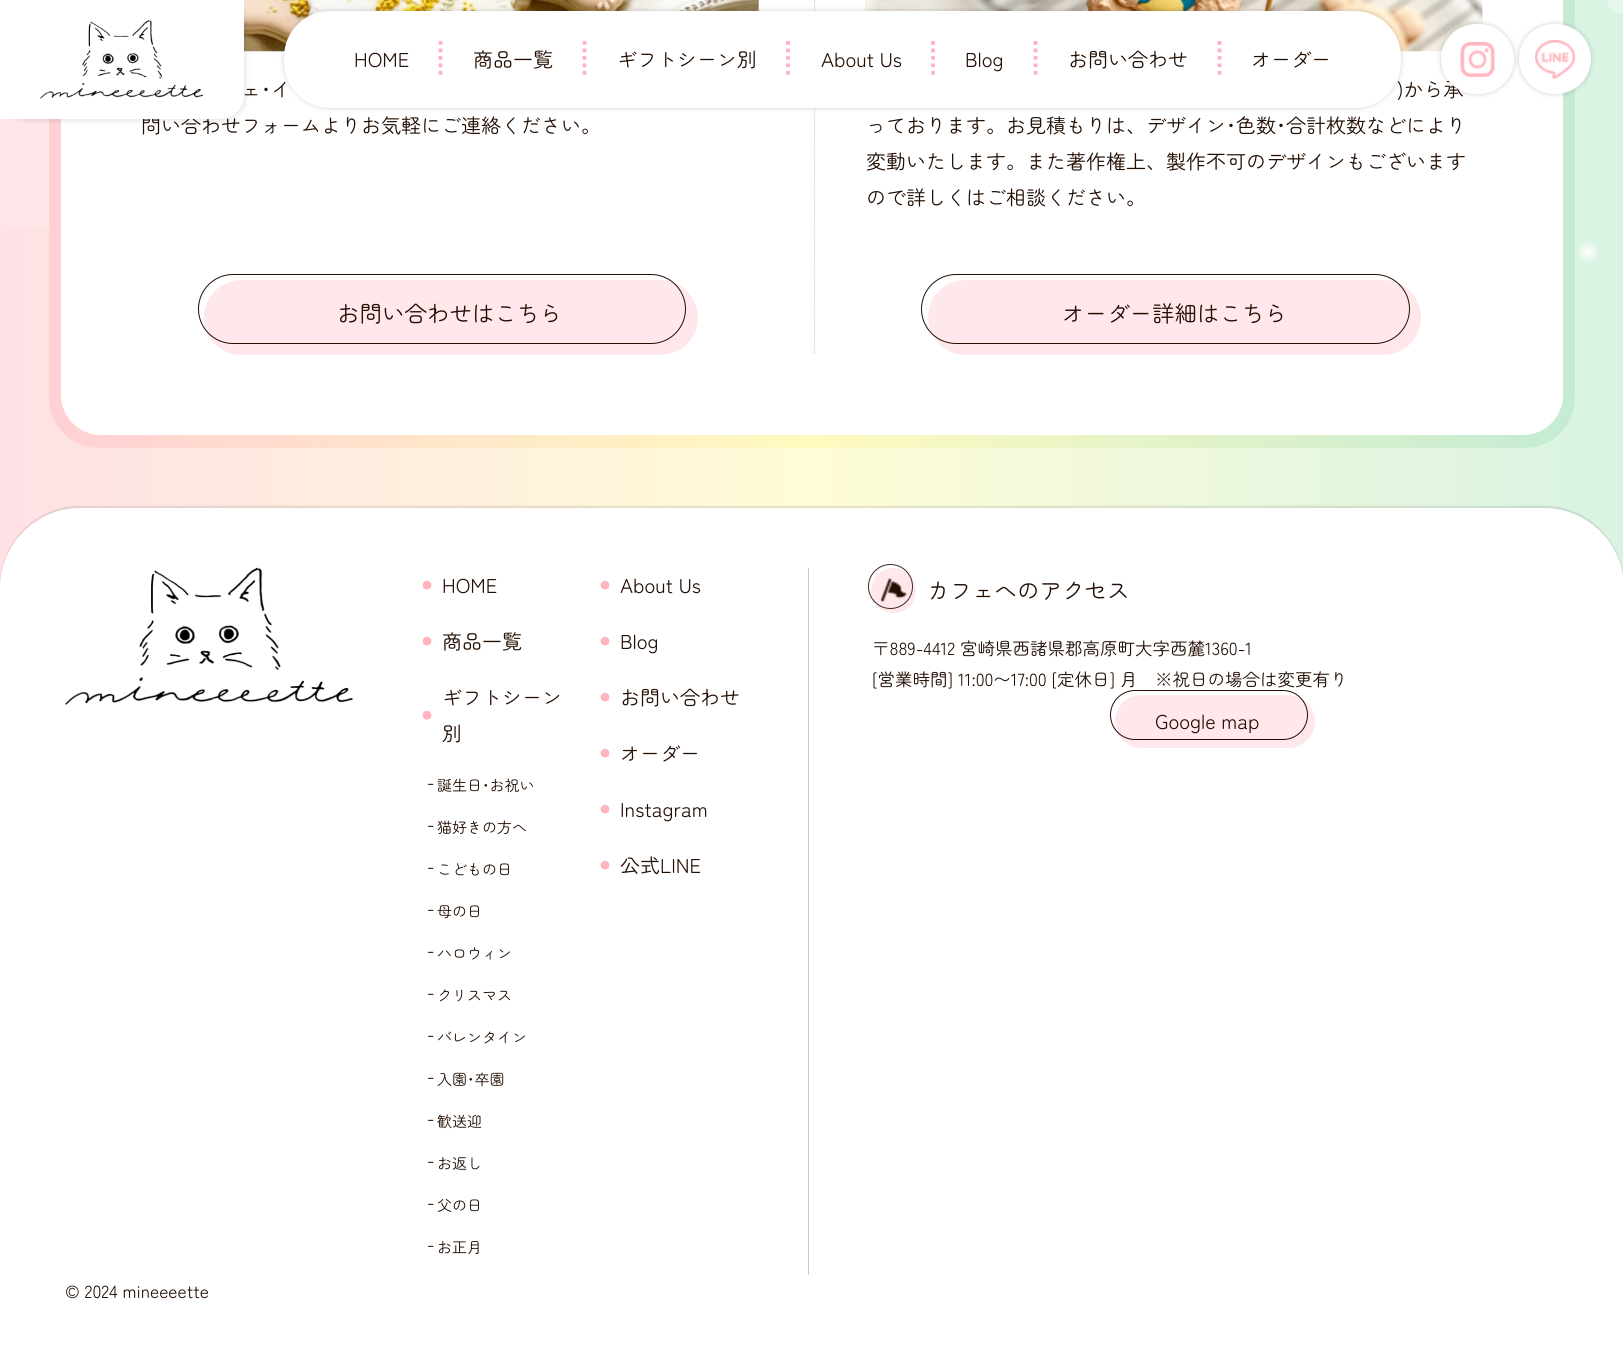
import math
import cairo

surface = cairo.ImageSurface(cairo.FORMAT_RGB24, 1623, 1366)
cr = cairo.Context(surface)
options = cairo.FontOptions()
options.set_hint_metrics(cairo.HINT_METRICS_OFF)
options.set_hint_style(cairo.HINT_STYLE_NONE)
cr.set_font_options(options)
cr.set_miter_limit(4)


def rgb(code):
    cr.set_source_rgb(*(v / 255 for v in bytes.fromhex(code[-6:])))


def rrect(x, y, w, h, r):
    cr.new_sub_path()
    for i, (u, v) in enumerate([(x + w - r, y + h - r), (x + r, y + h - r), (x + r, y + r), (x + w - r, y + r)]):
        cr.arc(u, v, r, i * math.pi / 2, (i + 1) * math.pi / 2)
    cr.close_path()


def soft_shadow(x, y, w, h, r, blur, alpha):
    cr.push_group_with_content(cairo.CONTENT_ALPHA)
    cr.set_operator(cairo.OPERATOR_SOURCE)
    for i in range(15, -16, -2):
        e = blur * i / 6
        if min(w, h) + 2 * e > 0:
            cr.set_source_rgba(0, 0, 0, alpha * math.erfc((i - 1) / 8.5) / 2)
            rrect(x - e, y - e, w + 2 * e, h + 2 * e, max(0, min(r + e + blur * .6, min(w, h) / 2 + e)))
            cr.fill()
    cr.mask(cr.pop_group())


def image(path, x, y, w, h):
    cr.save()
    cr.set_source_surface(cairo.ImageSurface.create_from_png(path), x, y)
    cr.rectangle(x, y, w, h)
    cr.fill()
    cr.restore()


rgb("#ffffff")
cr.paint()
image("img/1.png", 0, 0, 1623, 588)
gradient = cairo.LinearGradient(49, 21, 1575, 21)
gradient.add_color_stop_rgba(0, 1, 0.816, 0.831, 1)
gradient.add_color_stop_rgba(0.5, 1, 0.98, 0.749, 1)
gradient.add_color_stop_rgba(1, 0.769, 0.922, 0.827, 1)
cr.set_source(gradient)
rrect(49, -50, 1526, 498, 50)
cr.fill()
rgb("#ffffff")
rrect(61, -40, 1502, 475, 40)
cr.fill()
image("img/5.png", 244, 0, 515, 52)
rgb("#000000")
soft_shadow(3, 3, 243, 118, 24, 2.5, 0.1)
cr.new_path()
cr.move_to(814.5, -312.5)
cr.line_to(814.5, 355)
rgb("#cccccc")
cr.set_line_width(1.2)
cr.set_dash([1.25, 1.25])
cr.stroke()
image("img/6.png", 865, 0, 618, 52)
rgb("#000000")
soft_shadow(284, 11, 1117, 97, 46, 2.5, 0.2)
soft_shadow(1441, 24, 73, 70, 35, 2.5, 0.2)
rgb("#ffe8eb")
rrect(204, 280, 494, 75, 37.5)
cr.fill()
rrect(198.5, 274.5, 487, 69, 34.5)
rgb("#230e02")
cr.set_line_width(1)
cr.set_dash([])
cr.stroke()
rgb("#ffe8eb")
rrect(928, 280, 493, 75, 37.5)
cr.fill()
rrect(921.5, 274.5, 488, 69, 34.5)
rgb("#230e02")
cr.stroke()
rgb("#000000")
soft_shadow(0, 506, 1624, 859, 80, 0.5, 0.1)
rgb("#ffffff")
cr.new_path()
cr.move_to(80, 508)
cr.line_to(1544, 508)
cr.curve_to(1588, 508, 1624, 544, 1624, 588)
cr.line_to(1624, 1366)
cr.line_to(0, 1366)
cr.line_to(0, 588)
cr.curve_to(0, 544, 36, 508, 80, 508)
cr.close_path()
cr.fill()
image("img/7.png", 65, 567, 288, 138)
rgb("#c9c9c9")
cr.rectangle(808, 568, 1, 707)
cr.fill()
rgb("#ffe8eb")
cr.arc(893.5, 590.5, 22.5, 0, 2 * math.pi)
cr.fill()
image("img/8.png", 881, 578, 26, 24)
cr.arc(890.5, 586.5, 22, 0, 2 * math.pi)
rgb("#3f2c22")
cr.stroke()
rgb("#ffe8eb")
rrect(1115, 695, 200, 53, 26.5)
cr.fill()
rrect(1110.5, 690.5, 197, 49, 24.5)
rgb("#230e02")
cr.stroke()
cr.select_font_face("Zen Maru Gothic")
cr.set_font_size(20)
cr.move_to(241, 97)
cr.show_text("ェ･イ")
cr.move_to(141, 133)
cr.show_text("問い合わせフォームよりお気軽にご連絡ください。")
rgb("#ffffff")
cr.new_path()
cr.move_to(0, 0)
cr.line_to(244, 0)
cr.line_to(244, 95)
cr.curve_to(244, 108.5, 233.5, 119, 220, 119)
cr.line_to(0, 119)
cr.close_path()
cr.fill()
image("img/2.png", 40, 20, 163, 79)
cr.set_font_size(22.5)
rgb("#230e02")
cr.move_to(337, 322)
cr.show_text("お問い合わせはこちら")
cr.set_font_size(20)
cr.move_to(1397, 97)
cr.show_text(")から承")
rgb("#ffffff")
rrect(284, 11, 1117, 97, 46)
cr.fill()
rgb("#230e02")
cr.move_to(1251, 67)
cr.show_text("オーダー")
cr.move_to(1068, 67)
cr.show_text("お問い合わせ")
cr.new_path()
cr.move_to(1219.5, 41)
cr.line_to(1219.5, 77.5)
rgb("#ffb3bd")
cr.set_line_width(3.8)
cr.set_dash([3.75, 3.75])
cr.stroke()
rgb("#230e02")
cr.move_to(965, 67)
cr.show_text("Blog")
cr.new_path()
cr.move_to(1035.5, 41)
cr.line_to(1035.5, 77.5)
rgb("#ffb3bd")
cr.stroke()
rgb("#230e02")
cr.move_to(821, 67)
cr.show_text("About Us")
cr.new_path()
cr.move_to(933, 41)
cr.line_to(933, 77.5)
rgb("#ffb3bd")
cr.stroke()
rgb("#230e02")
cr.move_to(617, 67)
cr.show_text("ギフトシーン別")
cr.new_path()
cr.move_to(788, 41)
cr.line_to(788, 77.5)
rgb("#ffb3bd")
cr.stroke()
rgb("#230e02")
cr.move_to(473, 67)
cr.show_text("商品一覧")
cr.new_path()
cr.move_to(584.5, 41)
cr.line_to(584.5, 77.5)
rgb("#ffb3bd")
cr.stroke()
rgb("#230e02")
cr.move_to(354, 67)
cr.show_text("HOME")
cr.new_path()
cr.move_to(440.5, 41)
cr.line_to(440.5, 77.5)
rgb("#ffb3bd")
cr.stroke()
rgb("#ffffff")
rrect(1441, 24, 73, 70, 35)
cr.fill()
rgb("#000000")
soft_shadow(1519, 24, 72, 70, 35, 2.5, 0.2)
rgb("#ffffff")
rrect(1519, 24, 72, 70, 35)
cr.fill()
image("img/4.png", 1535, 40, 40, 39)
image("img/3.png", 1460, 42, 35, 35)
rgb("#230e02")
for x, y, s in [
    (866, 133, "っております。お見積もりは、デザイン･色数･合計枚数などにより"),
    (866, 169, "変動いたします。また著作権上、製作不可のデザインもございます"),
    (866, 205, "ので詳しくはご相談ください。"),
]:
    cr.move_to(x, y)
    cr.show_text(s)
cr.set_font_size(22.5)
cr.move_to(1062, 322)
cr.show_text("オーダー詳細はこちら")
cr.set_font_size(10)
rgb("#ffb3bd")
cr.move_to(422, 589)
cr.show_text("●")
cr.set_font_size(20)
rgb("#230e02")
cr.move_to(442, 593)
cr.show_text("HOME")
cr.set_font_size(10)
rgb("#ffb3bd")
cr.move_to(422, 645)
cr.show_text("●")
cr.set_font_size(20)
rgb("#230e02")
cr.move_to(442, 649)
cr.show_text("商品一覧")
cr.move_to(442, 705)
cr.show_text("ギフトシーン")
cr.set_font_size(10)
rgb("#ffb3bd")
cr.move_to(422, 719)
cr.show_text("●")
cr.set_font_size(20)
rgb("#230e02")
cr.move_to(442, 741)
cr.show_text("別")
cr.set_font_size(17.5)
cr.move_to(422, 791)
cr.show_text("‐")
cr.set_font_size(15)
cr.move_to(437, 791)
cr.show_text("誕生日･お祝い")
cr.set_font_size(17.5)
cr.move_to(422, 833)
cr.show_text("‐")
cr.set_font_size(15)
cr.move_to(437, 833)
cr.show_text("猫好きの方へ")
cr.set_font_size(17.5)
cr.move_to(422, 875)
cr.show_text("‐")
cr.set_font_size(15)
cr.move_to(437, 875)
cr.show_text("こどもの日")
cr.set_font_size(17.5)
cr.move_to(422, 917)
cr.show_text("‐")
cr.set_font_size(15)
cr.move_to(437, 917)
cr.show_text("母の日")
cr.set_font_size(17.5)
cr.move_to(422, 959)
cr.show_text("‐")
cr.set_font_size(15)
cr.move_to(437, 959)
cr.show_text("ハロウィン")
cr.set_font_size(17.5)
cr.move_to(422, 1001)
cr.show_text("‐")
cr.set_font_size(15)
cr.move_to(437, 1001)
cr.show_text("クリスマス")
cr.set_font_size(17.5)
cr.move_to(422, 1043)
cr.show_text("‐")
cr.set_font_size(15)
cr.move_to(437, 1043)
cr.show_text("バレンタイン")
cr.set_font_size(17.5)
cr.move_to(422, 1085)
cr.show_text("‐")
cr.set_font_size(15)
cr.move_to(437, 1085)
cr.show_text("入園･卒園")
cr.set_font_size(17.5)
cr.move_to(422, 1127)
cr.show_text("‐")
cr.set_font_size(15)
cr.move_to(437, 1127)
cr.show_text("歓送迎")
cr.set_font_size(17.5)
cr.move_to(422, 1169)
cr.show_text("‐")
cr.set_font_size(15)
cr.move_to(437, 1169)
cr.show_text("お返し")
cr.set_font_size(17.5)
cr.move_to(422, 1211)
cr.show_text("‐")
cr.set_font_size(15)
cr.move_to(437, 1211)
cr.show_text("父の日")
cr.set_font_size(17.5)
cr.move_to(422, 1253)
cr.show_text("‐")
cr.set_font_size(15)
cr.move_to(437, 1253)
cr.show_text("お正月")
cr.set_font_size(10)
rgb("#ffb3bd")
cr.move_to(600, 589)
cr.show_text("●")
cr.set_font_size(20)
rgb("#230e02")
cr.move_to(620, 593)
cr.show_text("About Us")
cr.set_font_size(10)
rgb("#ffb3bd")
cr.move_to(600, 645)
cr.show_text("●")
cr.set_font_size(20)
rgb("#230e02")
cr.move_to(620, 649)
cr.show_text("Blog")
cr.set_font_size(10)
rgb("#ffb3bd")
cr.move_to(600, 701)
cr.show_text("●")
cr.set_font_size(20)
rgb("#230e02")
cr.move_to(620, 705)
cr.show_text("お問い合わせ")
cr.set_font_size(10)
rgb("#ffb3bd")
cr.move_to(600, 757)
cr.show_text("●")
cr.set_font_size(20)
rgb("#230e02")
cr.move_to(620, 761)
cr.show_text("オーダー")
cr.set_font_size(10)
rgb("#ffb3bd")
cr.move_to(600, 813)
cr.show_text("●")
cr.set_font_size(20)
rgb("#230e02")
cr.move_to(620, 817)
cr.show_text("Instagram")
cr.set_font_size(10)
rgb("#ffb3bd")
cr.move_to(600, 869)
cr.show_text("●")
cr.set_font_size(20)
rgb("#230e02")
cr.move_to(620, 873)
cr.show_text("公式LINE")
cr.set_font_size(22.5)
cr.move_to(927, 599)
cr.show_text("カフェへのアクセス")
cr.set_font_size(17.5)
cr.move_to(872, 655)
cr.show_text("〒889-4412 宮崎県西諸県郡高原町大字西麓1360-1")
cr.move_to(872, 686)
cr.show_text("[営業時間] 11:00〜17:00 [定休日] 月　※祝日の場合は変更有り")
cr.set_font_size(20)
cr.move_to(1155, 729)
cr.show_text("Google map")
cr.set_font_size(17.5)
cr.move_to(65, 1298)
cr.show_text("© 2024 mineeeette")
surface.write_to_png("page.png")
